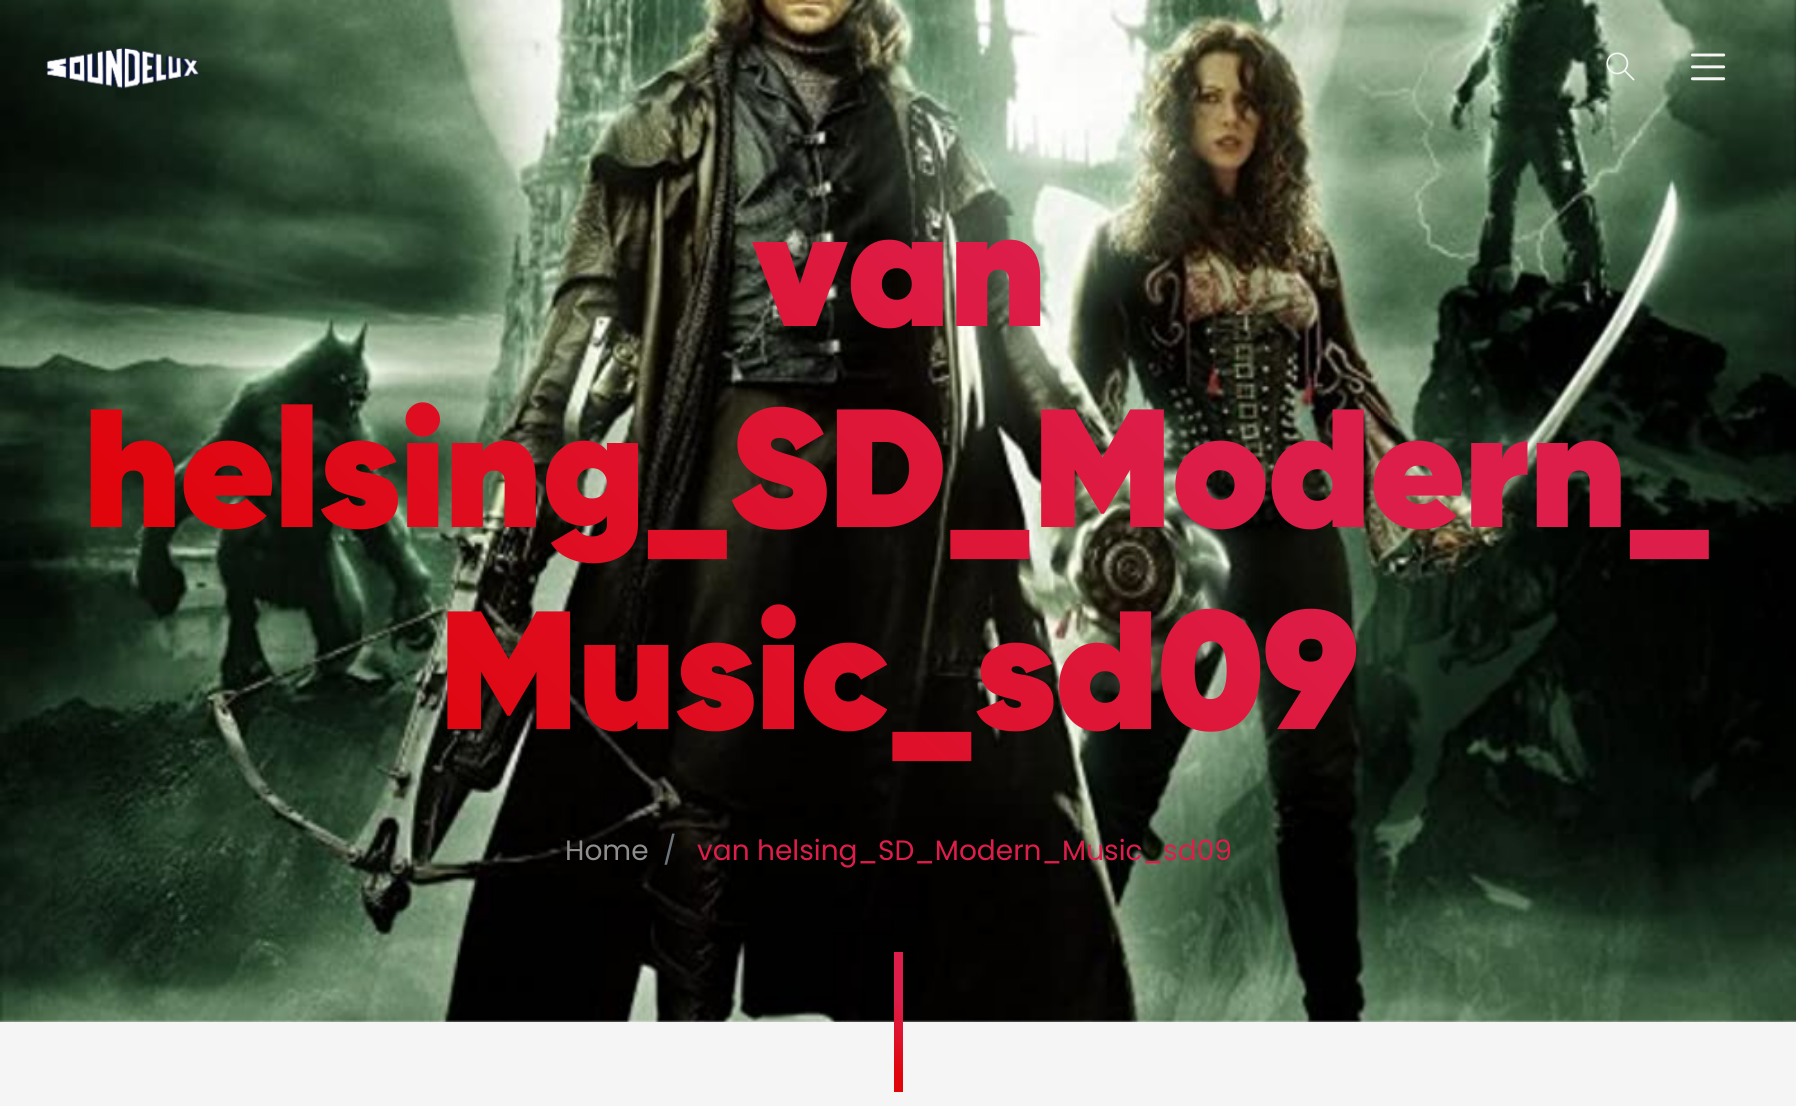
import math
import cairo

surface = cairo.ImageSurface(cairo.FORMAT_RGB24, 1796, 1106)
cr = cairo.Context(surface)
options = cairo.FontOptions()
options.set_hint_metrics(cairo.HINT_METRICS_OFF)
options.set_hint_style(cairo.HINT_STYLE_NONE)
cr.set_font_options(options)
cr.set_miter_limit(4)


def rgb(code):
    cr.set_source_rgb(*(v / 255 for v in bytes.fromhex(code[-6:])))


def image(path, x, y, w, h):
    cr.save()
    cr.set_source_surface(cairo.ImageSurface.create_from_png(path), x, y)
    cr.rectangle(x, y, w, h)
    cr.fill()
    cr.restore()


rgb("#ffffff")
cr.paint()
image("img/4.png", 0, 0, 1796, 1022)
image("img/1.png", 46, 47, 154, 42)
image("img/2.png", 1606, 52, 29, 29)
image("img/3.png", 1691, 53, 35, 28)
rgb("#f5f5f5")
cr.rectangle(0, 1022, 1796, 84)
cr.fill()
gradient = cairo.LinearGradient(861, 1059, 936, 985)
gradient.add_color_stop_rgba(0.15, 0.878, 0.016, 0.043, 1)
gradient.add_color_stop_rgba(0.65, 0.867, 0.118, 0.294, 1)
cr.set_source(gradient)
cr.rectangle(894, 952, 9, 140)
cr.fill()
cr.select_font_face("Gilroy Black")
cr.set_font_size(168)
gradient = cairo.LinearGradient(307, 1060, 1490, -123)
gradient.add_color_stop_rgba(0.15, 0.878, 0.016, 0.043, 1)
gradient.add_color_stop_rgba(0.65, 0.867, 0.118, 0.294, 1)
cr.set_source(gradient)
for x, y, s in [
    (752, 326, "van"),
    (84, 527, "helsing_SD_Modern_"),
    (439, 729, "Music_sd09"),
]:
    cr.move_to(x, y)
    cr.show_text(s)
cr.select_font_face("Poppins")
cr.set_font_size(28)
rgb("#8e8e8e")
cr.move_to(565, 860)
cr.show_text("Home")
rgb("#6c757d")
cr.move_to(663, 860)
cr.show_text("/")
rgb("#dd1e4b")
cr.move_to(697, 860)
cr.show_text("van helsing_SD_Modern_Music_sd09")
surface.write_to_png("page.png")
